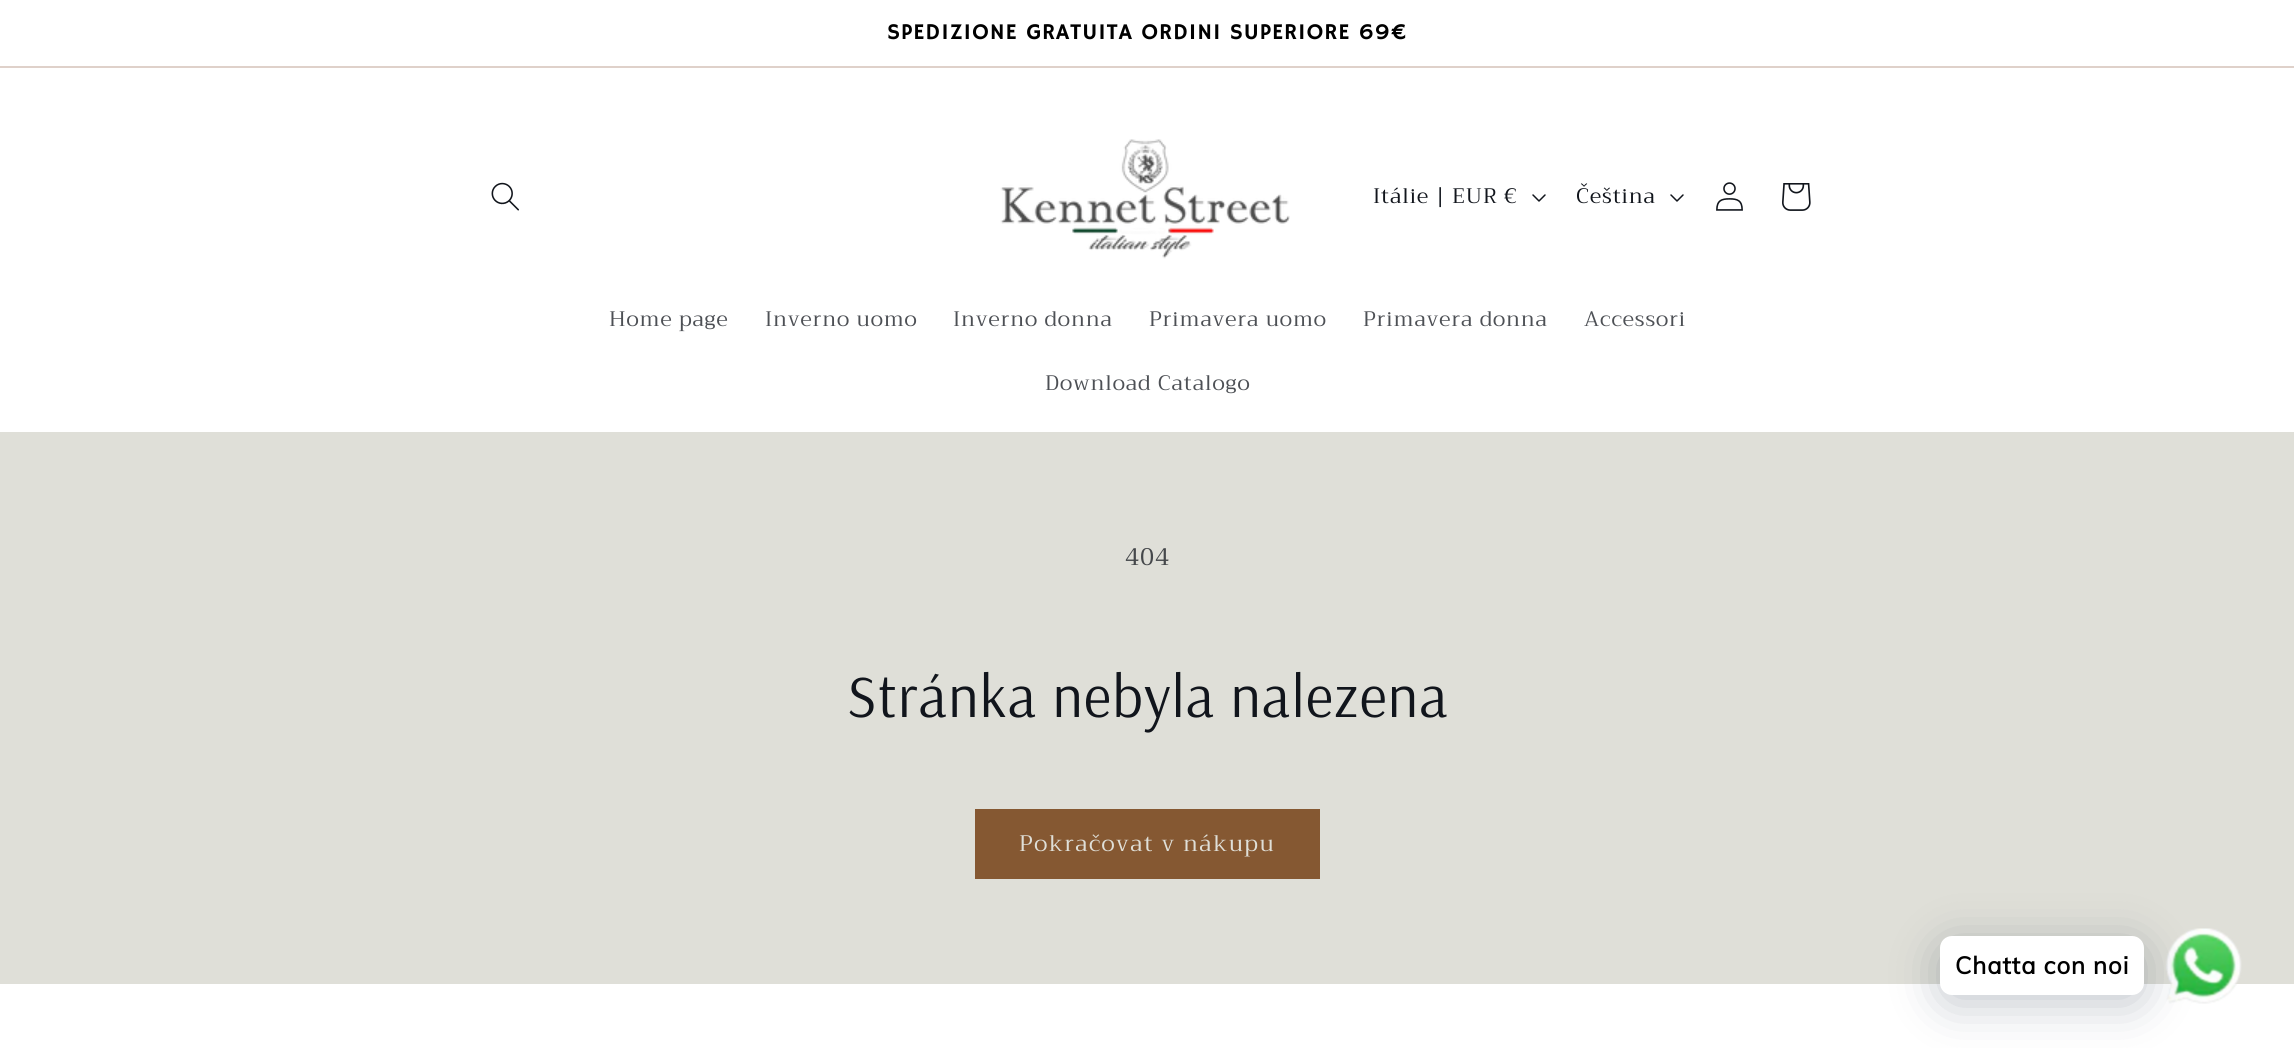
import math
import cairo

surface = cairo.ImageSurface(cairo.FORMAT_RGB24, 2294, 1048)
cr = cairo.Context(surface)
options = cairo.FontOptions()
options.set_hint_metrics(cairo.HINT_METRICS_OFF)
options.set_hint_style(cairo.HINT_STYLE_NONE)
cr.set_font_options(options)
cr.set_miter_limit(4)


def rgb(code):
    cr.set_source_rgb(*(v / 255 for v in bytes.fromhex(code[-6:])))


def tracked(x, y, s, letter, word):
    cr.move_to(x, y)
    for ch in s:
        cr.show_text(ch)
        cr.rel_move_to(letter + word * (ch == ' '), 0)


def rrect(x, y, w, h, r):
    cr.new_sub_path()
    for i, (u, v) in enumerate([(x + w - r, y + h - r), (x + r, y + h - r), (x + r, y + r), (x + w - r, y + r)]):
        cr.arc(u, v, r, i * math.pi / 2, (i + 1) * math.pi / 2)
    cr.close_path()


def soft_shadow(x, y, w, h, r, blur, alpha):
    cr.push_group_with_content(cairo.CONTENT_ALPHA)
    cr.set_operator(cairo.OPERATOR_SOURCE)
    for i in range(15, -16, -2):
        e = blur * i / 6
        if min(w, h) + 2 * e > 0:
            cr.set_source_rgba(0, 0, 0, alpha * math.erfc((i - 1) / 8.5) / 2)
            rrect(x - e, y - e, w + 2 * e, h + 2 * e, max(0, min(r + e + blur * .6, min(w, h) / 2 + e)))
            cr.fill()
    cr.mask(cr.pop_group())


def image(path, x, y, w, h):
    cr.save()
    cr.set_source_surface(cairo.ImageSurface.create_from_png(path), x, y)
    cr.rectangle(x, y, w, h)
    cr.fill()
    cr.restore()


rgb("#dfdfd8")
cr.paint()
for x, y, w, h, color in [
    (0, 0, 2294, 66, "#ffffff"),
    (0, 66, 2294, 2, "#dfd1ca"),
    (0, 68, 2294, 364, "#ffffff"),
]:
    rgb(color)
    cr.rectangle(x, y, w, h)
    cr.fill()
image("img/1.png", 491, 182, 28, 29)
image("img/2.png", 1000, 139, 290, 120)
image("img/3.png", 1532, 194, 14, 8)
image("img/3.png", 1670, 194, 14, 8)
image("img/4.png", 1716, 182, 27, 29)
image("img/5.png", 1782, 183, 29, 28)
rgb("#855832")
cr.rectangle(975, 809, 345, 70)
cr.fill()
rgb("#ffffff")
cr.rectangle(0, 984, 2294, 64)
cr.fill()
image("img/6.png", 2165, 928, 77, 76)
rgb("#00122e")
soft_shadow(1940, 945, 204, 59, 12, 24, 0.24)
rgb("#ffffff")
rrect(1940, 936, 204, 59, 12)
cr.fill()
cr.select_font_face("Hammersmith One")
cr.set_font_size(22.5)
rgb("#000000")
tracked(887, 39, "SPEDIZIONE GRATUITA ORDINI SUPERIORE 69€", 0.9, 0)
cr.select_font_face("Trirong")
cr.set_font_size(21)
rgb("#11151c")
tracked(1373, 203, "Itálie | EUR €", 0.9, 0)
tracked(1576, 203, "Čeština", 0.9, 0)
rgb("#4d5055")
for x, y, s in [
    (609, 326, "Home page"),
    (765, 326, "Inverno uomo"),
    (953, 326, "Inverno donna"),
    (1149, 326, "Primavera uomo"),
    (1363, 326, "Primavera donna"),
    (1584, 326, "Accessori"),
    (1045, 390, "Download Catalogo"),
]:
    tracked(x, y, s, 0.9, 0)
cr.set_font_size(24)
rgb("#45484b")
tracked(1125, 565, "404", 0.9, 0)
cr.select_font_face("Arsenal")
cr.set_font_size(60)
rgb("#11151c")
tracked(847, 717, "Stránka nebyla nalezena", 0.9, 0)
cr.select_font_face("Trirong")
cr.set_font_size(22.5)
rgb("#dfdfd8")
tracked(1019, 851, "Pokračovat v nákupu", 1.5, 0)
cr.select_font_face("Muli", cairo.FONT_SLANT_NORMAL, cairo.FONT_WEIGHT_BOLD)
cr.set_font_size(24)
rgb("#000000")
tracked(1955, 974, "Chatta con noi", 0.9, 0)
surface.write_to_png("page.png")
